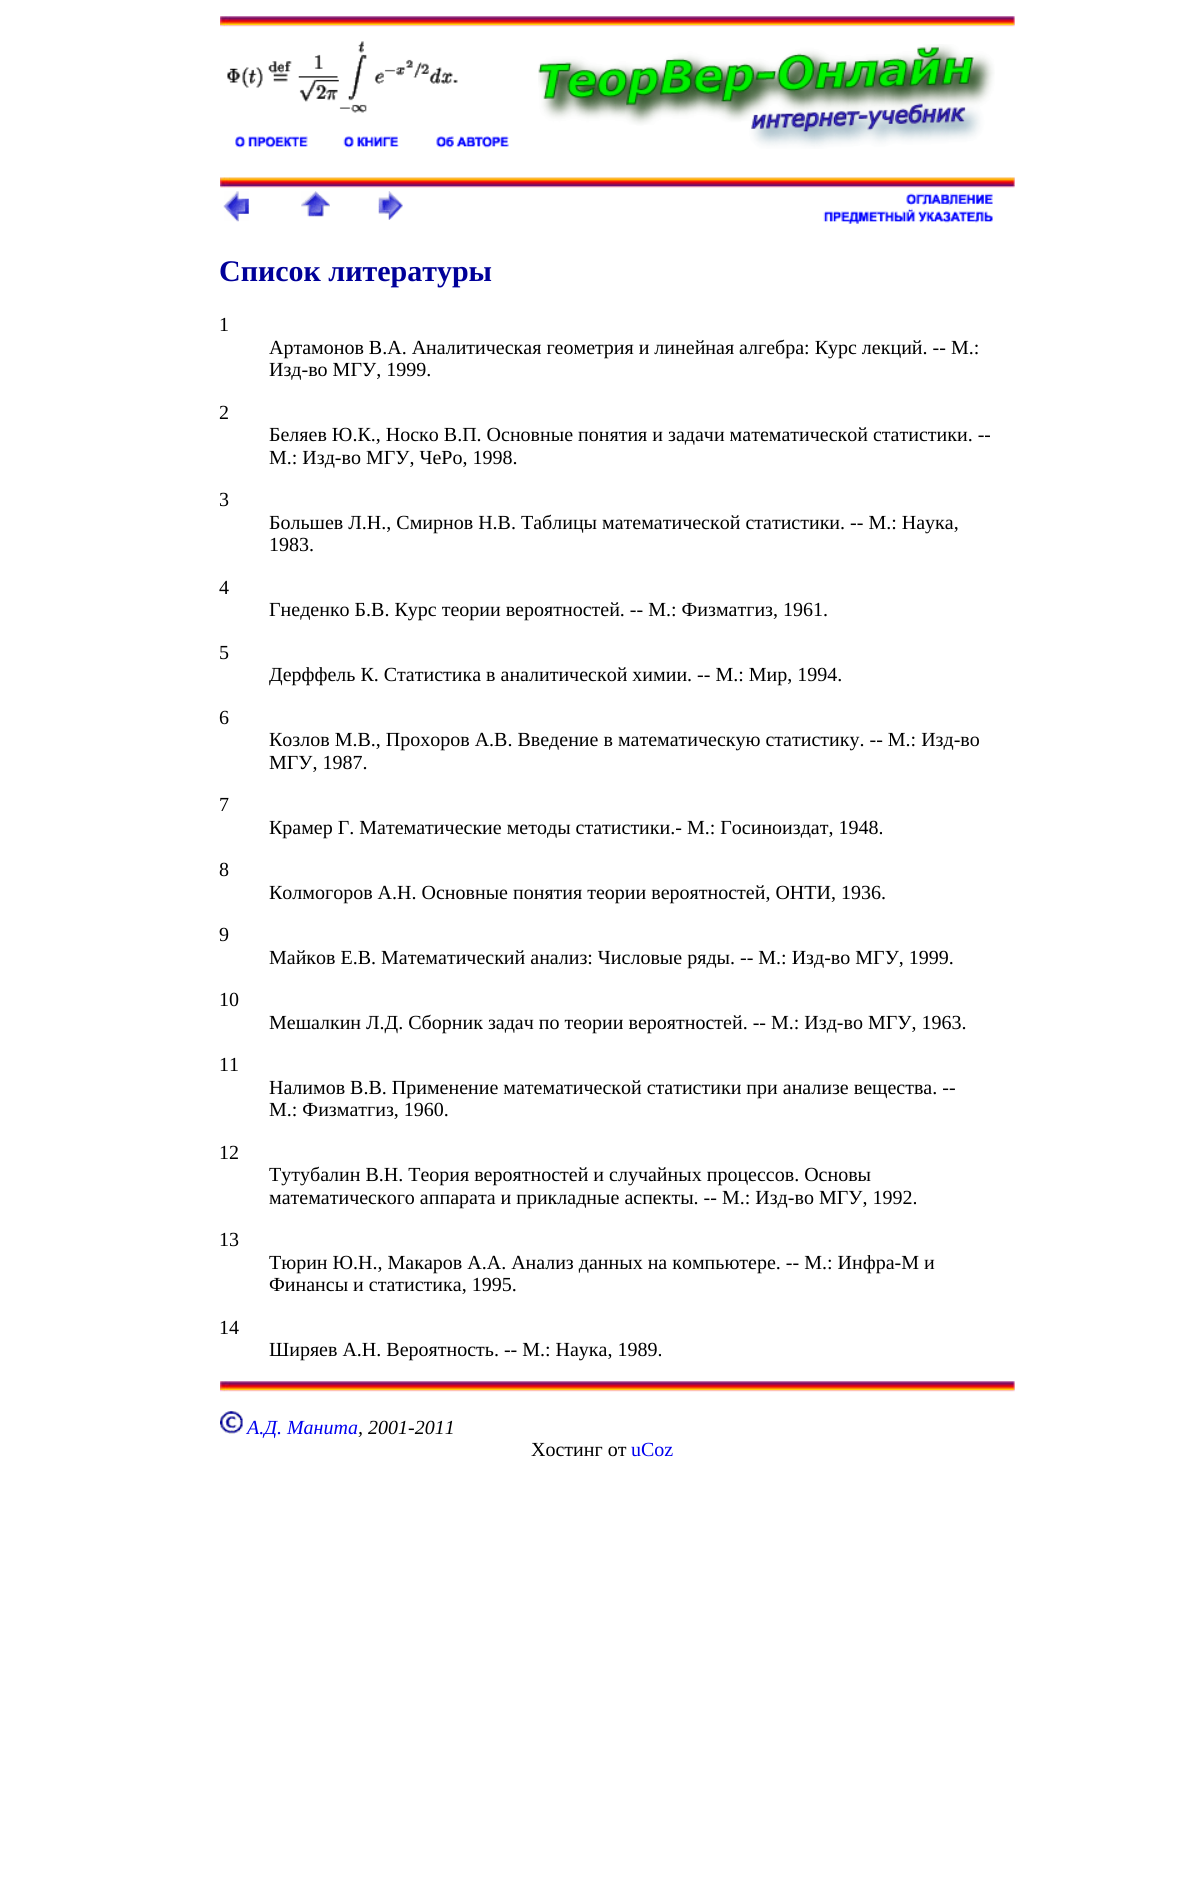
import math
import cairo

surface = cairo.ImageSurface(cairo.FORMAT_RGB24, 1203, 1877)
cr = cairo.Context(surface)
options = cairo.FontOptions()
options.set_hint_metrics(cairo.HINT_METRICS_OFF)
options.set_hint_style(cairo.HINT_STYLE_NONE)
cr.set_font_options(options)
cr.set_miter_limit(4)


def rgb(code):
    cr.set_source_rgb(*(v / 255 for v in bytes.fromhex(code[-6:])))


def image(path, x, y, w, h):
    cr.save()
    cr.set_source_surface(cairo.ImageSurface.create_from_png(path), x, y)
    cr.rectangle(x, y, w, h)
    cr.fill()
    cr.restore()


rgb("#ffffff")
cr.paint()
image("img/1.png", 220, 16, 795, 11)
image("img/2.png", 227, 41, 231, 72)
image("img/3.png", 235, 136, 73, 12)
image("img/4.png", 343, 136, 56, 12)
image("img/5.png", 436, 136, 73, 12)
image("img/6.png", 538, 44, 457, 105)
image("img/7.png", 220, 177, 795, 11)
image("img/8.png", 223, 191, 26, 31)
image("img/9.png", 301, 191, 29, 26)
image("img/10.png", 378, 191, 25, 29)
image("img/11.png", 906, 193, 87, 13)
image("img/12.png", 823, 208, 170, 16)
image("img/1.png", 220, 1381, 795, 11)
image("img/13.png", 220, 1411, 23, 23)
cr.select_font_face("Liberation Serif", cairo.FONT_SLANT_NORMAL, cairo.FONT_WEIGHT_BOLD)
cr.set_font_size(30)
rgb("#000099")
cr.move_to(219, 281)
cr.show_text("Список литературы")
cr.select_font_face("Liberation Serif")
cr.set_font_size(20)
rgb("#000000")
for x, y, s in [
    (219, 331, "1"),
    (269, 354, "Артамонов В.А. Аналитическая геометрия и линейная алгебра: Курс лекций. -- М.:"),
    (269, 376, "Изд-во МГУ, 1999."),
    (219, 419, "2"),
    (269, 441, "Беляев Ю.К., Носко В.П. Основные понятия и задачи математической статистики. --"),
    (269, 464, "М.: Изд-во МГУ, ЧеРо, 1998."),
    (219, 506, "3"),
    (269, 529, "Большев Л.Н., Смирнов Н.В. Таблицы математической статистики. -- М.: Наука,"),
    (269, 551, "1983."),
    (219, 594, "4"),
    (269, 616, "Гнеденко Б.В. Курс теории вероятностей. -- М.: Физматгиз, 1961."),
    (219, 659, "5"),
    (269, 681, "Дерффель К. Статистика в аналитической химии. -- М.: Мир, 1994."),
    (219, 724, "6"),
    (269, 746, "Козлов М.В., Прохоров А.В. Введение в математическую статистику. -- М.: Изд-во"),
    (269, 769, "МГУ, 1987."),
    (219, 811, "7"),
    (269, 834, "Крамер Г. Математические методы статистики.- М.: Госиноиздат, 1948."),
    (219, 876, "8"),
    (269, 899, "Колмогоров А.Н. Основные понятия теории вероятностей, ОНТИ, 1936."),
    (219, 941, "9"),
    (269, 964, "Майков Е.В. Математический анализ: Числовые ряды. -- М.: Изд-во МГУ, 1999."),
    (219, 1006, "10"),
    (269, 1029, "Мешалкин Л.Д. Сборник задач по теории вероятностей. -- М.: Изд-во МГУ, 1963."),
    (219, 1071, "11"),
    (269, 1094, "Налимов В.В. Применение математической статистики при анализе вещества. --"),
    (269, 1116, "М.: Физматгиз, 1960."),
    (219, 1159, "12"),
    (269, 1181, "Тутубалин В.Н. Теория вероятностей и случайных процессов. Основы"),
    (269, 1204, "математического аппарата и прикладные аспекты. -- М.: Изд-во МГУ, 1992."),
    (219, 1246, "13"),
    (269, 1269, "Тюрин Ю.Н., Макаров А.А. Анализ данных на компьютере. -- М.: Инфра-М и"),
    (269, 1291, "Финансы и статистика, 1995."),
    (219, 1334, "14"),
    (269, 1356, "Ширяев А.Н. Вероятность. -- М.: Наука, 1989."),
]:
    cr.move_to(x, y)
    cr.show_text(s)
cr.select_font_face("Liberation Serif", cairo.FONT_SLANT_ITALIC)
rgb("#0000ee")
cr.move_to(247, 1434)
cr.show_text("А.Д. Манита")
rgb("#000000")
cr.move_to(358, 1434)
cr.show_text(", 2001-2011")
cr.select_font_face("Liberation Serif")
cr.move_to(531, 1456)
cr.show_text("Хостинг от")
rgb("#0000ee")
cr.move_to(631, 1456)
cr.show_text("uCoz")
surface.write_to_png("page.png")
